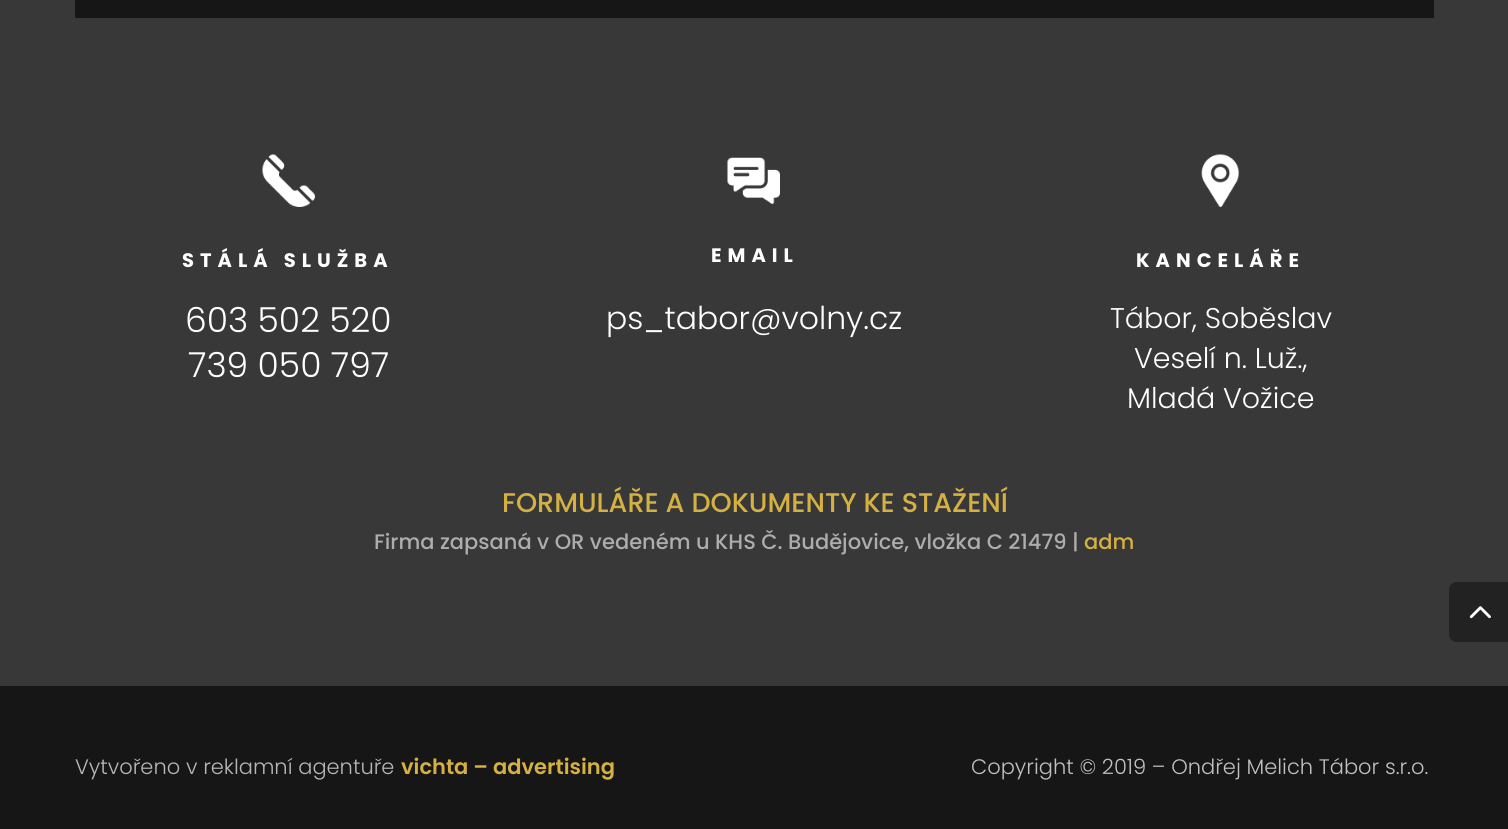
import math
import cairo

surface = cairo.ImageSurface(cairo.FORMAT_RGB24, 1508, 829)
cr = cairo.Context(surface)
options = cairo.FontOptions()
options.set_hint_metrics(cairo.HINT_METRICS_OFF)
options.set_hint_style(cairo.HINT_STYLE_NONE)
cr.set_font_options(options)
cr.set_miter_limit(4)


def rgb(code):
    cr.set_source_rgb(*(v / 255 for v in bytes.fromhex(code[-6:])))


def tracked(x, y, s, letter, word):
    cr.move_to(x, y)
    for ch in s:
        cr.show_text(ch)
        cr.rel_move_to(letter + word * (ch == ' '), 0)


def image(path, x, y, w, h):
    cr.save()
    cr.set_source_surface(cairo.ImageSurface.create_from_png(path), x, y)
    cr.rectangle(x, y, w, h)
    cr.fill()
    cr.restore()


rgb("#383838")
cr.paint()
rgb("#161616")
cr.rectangle(75, 0, 1359, 18)
cr.fill()
image("img/1.png", 262, 154, 53, 53)
image("img/2.png", 727, 157, 53, 47)
image("img/3.png", 1201, 154, 39, 53)
cr.rectangle(0, 686, 1508, 143)
cr.fill()
rgb("#222222")
cr.new_path()
cr.move_to(1457, 582)
cr.line_to(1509, 582)
cr.line_to(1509, 642)
cr.line_to(1457, 642)
cr.curve_to(1452.5, 642, 1449, 638.5, 1449, 634)
cr.line_to(1449, 590)
cr.curve_to(1449, 585.5, 1452.5, 582, 1457, 582)
cr.close_path()
cr.fill()
image("img/4.png", 1469, 606, 22, 13)
cr.select_font_face("Poppins", cairo.FONT_SLANT_NORMAL, cairo.FONT_WEIGHT_BOLD)
cr.set_font_size(19.5)
rgb("#ffffff")
tracked(182, 267, "STÁLÁ SLUŽBA", 6, 0)
cr.select_font_face("Poppins Light")
cr.set_font_size(34.5)
cr.move_to(185, 332)
cr.show_text("603 502 520")
cr.move_to(188, 377)
cr.show_text("739 050 797")
cr.select_font_face("Poppins", cairo.FONT_SLANT_NORMAL, cairo.FONT_WEIGHT_BOLD)
cr.set_font_size(19.5)
tracked(711, 262, "EMAIL", 6, 0)
cr.select_font_face("Poppins Light")
cr.set_font_size(31.5)
cr.move_to(606, 329)
cr.show_text("ps_tabor@volny.cz")
cr.select_font_face("Poppins", cairo.FONT_SLANT_NORMAL, cairo.FONT_WEIGHT_BOLD)
cr.set_font_size(19.5)
tracked(1136, 267, "KANCELÁŘE", 6, 0)
cr.select_font_face("Poppins Light")
cr.set_font_size(28.5)
for x, y, s in [
    (1110, 328, "Tábor, Soběslav"),
    (1134, 368, "Veselí n. Luž.,"),
    (1127, 408, "Mladá Vožice"),
]:
    cr.move_to(x, y)
    cr.show_text(s)
cr.select_font_face("Poppins Medium")
cr.set_font_size(27)
rgb("#d5b142")
cr.move_to(502, 512)
cr.show_text("FORMULÁŘE A DOKUMENTY KE STAŽENÍ")
cr.set_font_size(21)
rgb("#adadad")
cr.move_to(374, 549)
cr.show_text("Firma zapsaná v OR vedeném u KHS Č. Budějovice, vložka C 21479 |")
rgb("#d5b142")
cr.move_to(1084, 549)
cr.show_text("adm")
cr.select_font_face("Poppins Light")
rgb("#b7b7b7")
cr.move_to(75, 774)
cr.show_text("Vytvořeno v reklamní agentuře")
cr.select_font_face("Poppins SemiBold")
rgb("#d5b142")
cr.move_to(401, 774)
cr.show_text("vichta – advertising")
cr.select_font_face("Poppins Light")
rgb("#c1c1c1")
cr.move_to(971, 774)
cr.show_text("Copyright © 2019 – Ondřej Melich Tábor s.r.o.")
surface.write_to_png("page.png")
